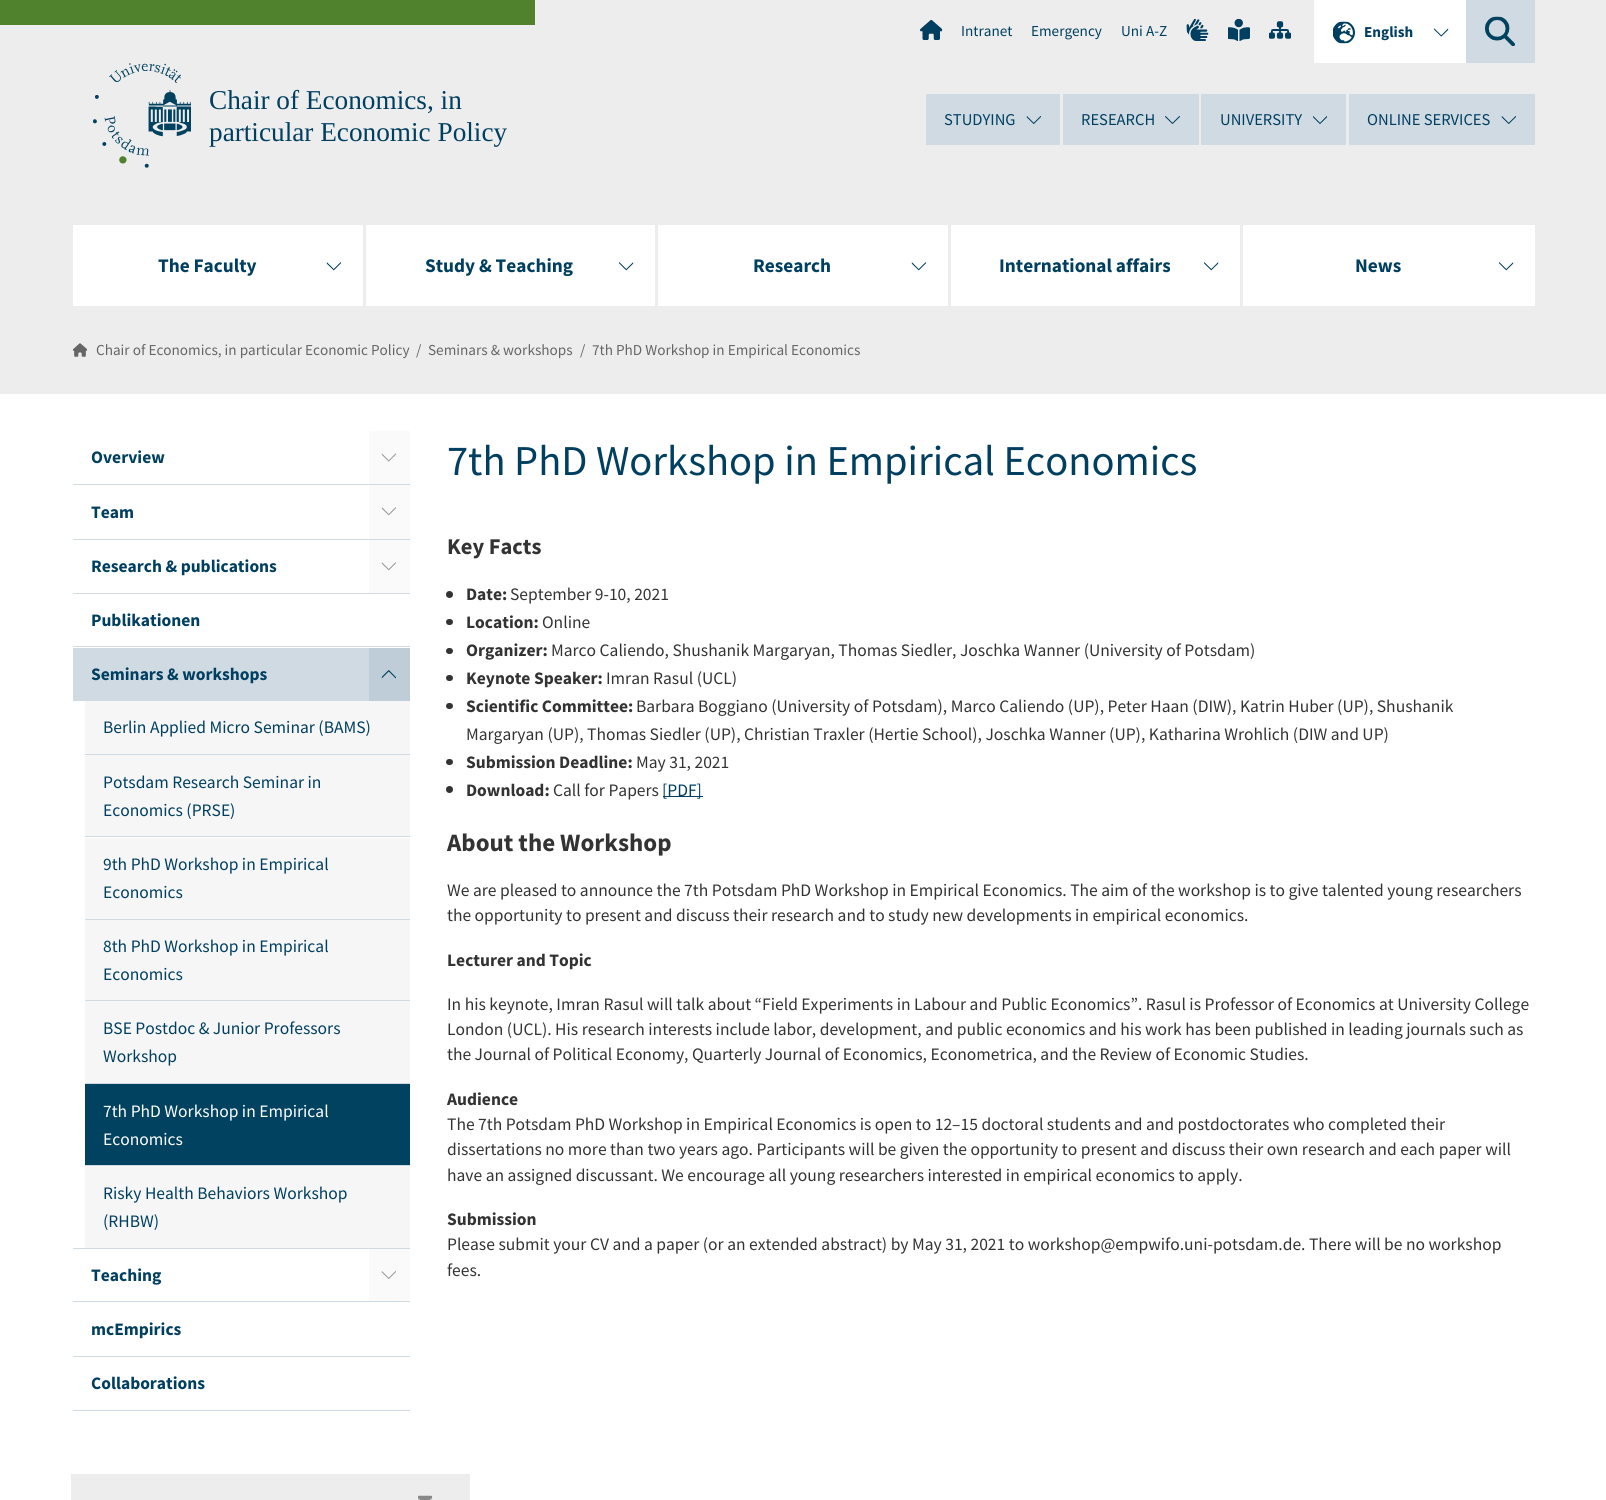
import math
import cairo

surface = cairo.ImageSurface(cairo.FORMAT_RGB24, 1606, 1500)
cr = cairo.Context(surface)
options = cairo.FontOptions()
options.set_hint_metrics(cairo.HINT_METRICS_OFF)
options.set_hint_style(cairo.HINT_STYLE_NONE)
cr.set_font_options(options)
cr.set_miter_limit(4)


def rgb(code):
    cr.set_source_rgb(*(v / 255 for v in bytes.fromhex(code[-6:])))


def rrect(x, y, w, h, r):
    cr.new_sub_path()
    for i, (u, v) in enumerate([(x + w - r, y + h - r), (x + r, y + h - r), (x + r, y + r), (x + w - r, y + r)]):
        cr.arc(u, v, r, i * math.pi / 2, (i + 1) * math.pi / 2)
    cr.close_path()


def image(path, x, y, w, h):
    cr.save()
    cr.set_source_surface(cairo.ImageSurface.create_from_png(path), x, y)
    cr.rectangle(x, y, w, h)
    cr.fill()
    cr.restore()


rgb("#ffffff")
cr.paint()
rgb("#ededed")
cr.rectangle(0, 0, 1606, 394)
cr.fill()
rgb("#50822e")
cr.rectangle(0, 0, 535, 25)
cr.fill()
image("img/1.png", 93, 63, 98, 105)
image("img/2.png", 920, 20, 23, 20)
image("img/3.png", 1186, 19, 23, 22)
image("img/4.png", 1228, 19, 22, 22)
image("img/5.png", 1269, 21, 22, 18)
rgb("#ffffff")
cr.rectangle(1314, 0, 152, 63)
cr.fill()
image("img/6.png", 1333, 21, 22, 23)
image("img/7.png", 1434, 28, 15, 9)
rgb("#cfdae3")
cr.rectangle(1466, 0, 69, 63)
cr.fill()
image("img/8.png", 1485, 16, 30, 30)
cr.rectangle(926, 94, 134, 51)
cr.fill()
image("img/9.png", 1026, 116, 15, 8)
cr.rectangle(1063, 94, 136, 51)
cr.fill()
image("img/10.png", 1165, 116, 15, 8)
cr.rectangle(1201, 94, 145, 51)
cr.fill()
image("img/11.png", 1313, 116, 15, 8)
cr.rectangle(1349, 94, 186, 51)
cr.fill()
image("img/9.png", 1501, 116, 15, 8)
rgb("#ffffff")
cr.rectangle(73, 225, 1462, 81)
cr.fill()
rgb("#ededed")
cr.rectangle(363, 225, 3, 81)
cr.fill()
image("img/12.png", 326, 262, 15, 9)
cr.rectangle(655, 225, 3, 81)
cr.fill()
image("img/13.png", 619, 262, 15, 9)
cr.rectangle(948, 225, 3, 81)
cr.fill()
image("img/12.png", 911, 262, 15, 9)
cr.rectangle(1240, 225, 3, 81)
cr.fill()
image("img/13.png", 1204, 262, 15, 9)
image("img/13.png", 1499, 262, 15, 9)
image("img/14.png", 73, 343, 14, 14)
rgb("#cfdae3")
cr.rectangle(73, 484, 337, 1)
cr.fill()
rgb("#fafafa")
cr.rectangle(369, 431, 41, 53)
cr.fill()
image("img/15.png", 381, 453, 15, 9)
rgb("#cfdae3")
cr.rectangle(73, 539, 337, 1)
cr.fill()
rgb("#fafafa")
cr.rectangle(369, 485, 41, 54)
cr.fill()
image("img/16.png", 381, 507, 15, 9)
rgb("#cfdae3")
cr.rectangle(73, 593, 337, 1)
cr.fill()
rgb("#fafafa")
cr.rectangle(369, 540, 41, 53)
cr.fill()
image("img/17.png", 381, 562, 15, 9)
for x, y, w, h, color in [
    (73, 646, 337, 1, "#cfdae3"),
    (73, 1248, 337, 1, "#cfdae3"),
    (369, 648, 41, 53, "#bfcdd8"),
    (73, 648, 296, 53, "#cfdae3"),
]:
    rgb(color)
    cr.rectangle(x, y, w, h)
    cr.fill()
image("img/18.png", 381, 670, 15, 9)
for x, y, w, h, color in [
    (85, 754, 325, 1, "#cfdae3"),
    (85, 701, 325, 53, "#f6f6f6"),
    (85, 836, 325, 1, "#cfdae3"),
    (85, 755, 325, 81, "#f6f6f6"),
    (85, 919, 325, 1, "#cfdae3"),
    (85, 838, 325, 81, "#f6f6f6"),
    (85, 1000, 325, 1, "#cfdae3"),
    (85, 920, 325, 80, "#f6f6f6"),
    (85, 1083, 325, 1, "#cfdae3"),
    (85, 1001, 325, 82, "#f6f6f6"),
    (85, 1165, 325, 1, "#cfdae3"),
    (85, 1084, 325, 81, "#004260"),
    (85, 1166, 325, 82, "#f6f6f6"),
    (73, 1301, 337, 1, "#cfdae3"),
    (369, 1249, 41, 52, "#fafafa"),
]:
    rgb(color)
    cr.rectangle(x, y, w, h)
    cr.fill()
image("img/19.png", 381, 1271, 15, 8)
rgb("#cfdae3")
cr.rectangle(73, 1356, 337, 1)
cr.fill()
cr.rectangle(73, 1410, 337, 1)
cr.fill()
rgb("#333333")
cr.arc(449.5, 594.5, 3.5, 0, 2 * math.pi)
cr.fill()
rrect(446, 619, 7, 6, 3)
cr.fill()
rrect(446, 648, 7, 6, 3)
cr.fill()
rrect(446, 675, 7, 6, 3)
cr.fill()
rrect(446, 703, 7, 6, 3)
cr.fill()
rrect(446, 759, 7, 6, 3)
cr.fill()
cr.arc(449.5, 789.5, 3.5, 0, 2 * math.pi)
cr.fill()
rgb("#003f60")
cr.rectangle(663, 796, 40, 1)
cr.fill()
rgb("#ededed")
cr.rectangle(71, 1474, 399, 26)
cr.fill()
image("img/20.png", 418, 1495, 15, 5)
cr.select_font_face("Liberation Serif")
cr.set_font_size(27.25)
rgb("#003f60")
cr.move_to(209, 109)
cr.show_text("Chair of Economics, in")
cr.move_to(209, 141)
cr.show_text("particular Economic Policy")
cr.select_font_face("Source Sans Pro")
cr.set_font_size(15.2)
for x, y, s in [
    (961, 36, "Intranet"),
    (1031, 36, "Emergency"),
    (1121, 36, "Uni A-Z"),
]:
    cr.move_to(x, y)
    cr.show_text(s)
cr.select_font_face("Source Sans Pro", cairo.FONT_SLANT_NORMAL, cairo.FONT_WEIGHT_BOLD)
cr.move_to(1364, 37)
cr.show_text("English")
cr.select_font_face("Source Sans Pro")
cr.set_font_size(16.5)
for x, y, s in [
    (944, 125, "STUDYING"),
    (1081, 125, "RESEARCH"),
    (1220, 125, "UNIVERSITY"),
    (1367, 125, "ONLINE SERVICES"),
]:
    cr.move_to(x, y)
    cr.show_text(s)
cr.select_font_face("Source Sans Pro", cairo.FONT_SLANT_NORMAL, cairo.FONT_WEIGHT_BOLD)
cr.set_font_size(19.25)
for x, y, s in [
    (158, 272, "The Faculty"),
    (425, 272, "Study & Teaching"),
    (753, 272, "Research"),
    (999, 272, "International affairs"),
    (1355, 272, "News"),
]:
    cr.move_to(x, y)
    cr.show_text(s)
cr.select_font_face("Source Sans Pro")
cr.set_font_size(15.2)
rgb("#666666")
for x, y, s in [
    (96, 355, "Chair of Economics, in particular Economic Policy"),
    (416, 355, "/"),
    (428, 355, "Seminars & workshops"),
    (580, 355, "/"),
    (592, 355, "7th PhD Workshop in Empirical Economics"),
]:
    cr.move_to(x, y)
    cr.show_text(s)
cr.select_font_face("Source Sans Pro", cairo.FONT_SLANT_NORMAL, cairo.FONT_WEIGHT_BOLD)
cr.set_font_size(17.5)
rgb("#003f60")
for x, y, s in [
    (91, 463, "Overview"),
    (91, 518, "Team"),
    (91, 572, "Research & publications"),
    (91, 626, "Publikationen"),
    (91, 680, "Seminars & workshops"),
]:
    cr.move_to(x, y)
    cr.show_text(s)
cr.select_font_face("Source Sans Pro")
for x, y, s in [
    (103, 733, "Berlin Applied Micro Seminar (BAMS)"),
    (103, 788, "Potsdam Research Seminar in"),
    (103, 816, "Economics (PRSE)"),
    (103, 870, "9th PhD Workshop in Empirical"),
    (103, 898, "Economics"),
    (103, 952, "8th PhD Workshop in Empirical"),
    (103, 980, "Economics"),
    (103, 1034, "BSE Postdoc & Junior Professors"),
    (103, 1062, "Workshop"),
]:
    cr.move_to(x, y)
    cr.show_text(s)
rgb("#ffffff")
cr.move_to(103, 1117)
cr.show_text("7th PhD Workshop in Empirical")
cr.move_to(103, 1145)
cr.show_text("Economics")
rgb("#003f60")
cr.move_to(103, 1199)
cr.show_text("Risky Health Behaviors Workshop")
cr.move_to(103, 1227)
cr.show_text("(RHBW)")
cr.select_font_face("Source Sans Pro", cairo.FONT_SLANT_NORMAL, cairo.FONT_WEIGHT_BOLD)
for x, y, s in [
    (91, 1281, "Teaching"),
    (91, 1335, "mcEmpirics"),
    (91, 1389, "Collaborations"),
]:
    cr.move_to(x, y)
    cr.show_text(s)
cr.select_font_face("Source Sans Pro")
cr.set_font_size(42.5)
cr.move_to(447, 475)
cr.show_text("7th PhD Workshop in Empirical Economics")
cr.select_font_face("Source Sans Pro", cairo.FONT_SLANT_NORMAL, cairo.FONT_WEIGHT_BOLD)
cr.set_font_size(22.5)
rgb("#333333")
cr.move_to(447, 554)
cr.show_text("Key Facts")
cr.set_font_size(17.5)
cr.move_to(466, 600)
cr.show_text("Date:")
cr.select_font_face("Source Sans Pro")
cr.move_to(510, 600)
cr.show_text("September 9-10, 2021")
cr.select_font_face("Source Sans Pro", cairo.FONT_SLANT_NORMAL, cairo.FONT_WEIGHT_BOLD)
cr.move_to(466, 628)
cr.show_text("Location:")
cr.select_font_face("Source Sans Pro")
cr.move_to(542, 628)
cr.show_text("Online")
cr.select_font_face("Source Sans Pro", cairo.FONT_SLANT_NORMAL, cairo.FONT_WEIGHT_BOLD)
cr.move_to(466, 656)
cr.show_text("Organizer:")
cr.select_font_face("Source Sans Pro")
cr.move_to(551, 656)
cr.show_text("Marco Caliendo, Shushanik Margaryan, Thomas Siedler, Joschka Wanner (University of Potsdam)")
cr.select_font_face("Source Sans Pro", cairo.FONT_SLANT_NORMAL, cairo.FONT_WEIGHT_BOLD)
cr.move_to(466, 684)
cr.show_text("Keynote Speaker:")
cr.select_font_face("Source Sans Pro")
cr.move_to(606, 684)
cr.show_text("Imran Rasul (UCL)")
cr.select_font_face("Source Sans Pro", cairo.FONT_SLANT_NORMAL, cairo.FONT_WEIGHT_BOLD)
cr.move_to(466, 712)
cr.show_text("Scientific Committee:")
cr.select_font_face("Source Sans Pro")
cr.move_to(636, 712)
cr.show_text("Barbara Boggiano (University of Potsdam), Marco Caliendo (UP), Peter Haan (DIW), Katrin Huber (UP), Shushanik")
cr.move_to(466, 740)
cr.show_text("Margaryan (UP), Thomas Siedler (UP), Christian Traxler (Hertie School), Joschka Wanner (UP), Katharina Wrohlich (DIW and UP)")
cr.select_font_face("Source Sans Pro", cairo.FONT_SLANT_NORMAL, cairo.FONT_WEIGHT_BOLD)
cr.move_to(466, 768)
cr.show_text("Submission Deadline:")
cr.select_font_face("Source Sans Pro")
cr.move_to(636, 768)
cr.show_text("May 31, 2021")
cr.select_font_face("Source Sans Pro", cairo.FONT_SLANT_NORMAL, cairo.FONT_WEIGHT_BOLD)
cr.move_to(466, 796)
cr.show_text("Download:")
cr.select_font_face("Source Sans Pro")
cr.move_to(553, 796)
cr.show_text("Call for Papers")
rgb("#003f60")
cr.move_to(662, 796)
cr.show_text("[PDF]")
cr.select_font_face("Source Sans Pro", cairo.FONT_SLANT_NORMAL, cairo.FONT_WEIGHT_BOLD)
cr.set_font_size(25)
rgb("#333333")
cr.move_to(447, 851)
cr.show_text("About the Workshop")
cr.select_font_face("Source Sans Pro")
cr.set_font_size(17.5)
cr.move_to(447, 896)
cr.show_text("We are pleased to announce the 7th Potsdam PhD Workshop in Empirical Economics. The aim of the workshop is to give talented young researchers")
cr.move_to(447, 921)
cr.show_text("the opportunity to present and discuss their research and to study new developments in empirical economics.")
cr.select_font_face("Source Sans Pro", cairo.FONT_SLANT_NORMAL, cairo.FONT_WEIGHT_BOLD)
cr.move_to(447, 966)
cr.show_text("Lecturer and Topic")
cr.select_font_face("Source Sans Pro")
for x, y, s in [
    (447, 1010, "In his keynote, Imran Rasul will talk about “Field Experiments in Labour and Public Economics”. Rasul is Professor of Economics at University College"),
    (447, 1035, "London (UCL). His research interests include labor, development, and public economics and his work has been published in leading journals such as"),
    (447, 1060, "the Journal of Political Economy, Quarterly Journal of Economics, Econometrica, and the Review of Economic Studies."),
]:
    cr.move_to(x, y)
    cr.show_text(s)
cr.select_font_face("Source Sans Pro", cairo.FONT_SLANT_NORMAL, cairo.FONT_WEIGHT_BOLD)
cr.move_to(447, 1105)
cr.show_text("Audience")
cr.select_font_face("Source Sans Pro")
for x, y, s in [
    (447, 1130, "The 7th Potsdam PhD Workshop in Empirical Economics is open to 12–15 doctoral students and and postdoctorates who completed their"),
    (447, 1155, "dissertations no more than two years ago. Participants will be given the opportunity to present and discuss their own research and each paper will"),
    (447, 1181, "have an assigned discussant. We encourage all young researchers interested in empirical economics to apply."),
]:
    cr.move_to(x, y)
    cr.show_text(s)
cr.select_font_face("Source Sans Pro", cairo.FONT_SLANT_NORMAL, cairo.FONT_WEIGHT_BOLD)
cr.move_to(447, 1225)
cr.show_text("Submission")
cr.select_font_face("Source Sans Pro")
cr.move_to(447, 1250)
cr.show_text("Please submit your CV and a paper (or an extended abstract) by May 31, 2021 to workshop@empwifo.uni-potsdam.de. There will be no workshop")
cr.move_to(447, 1276)
cr.show_text("fees.")
surface.write_to_png("page.png")
